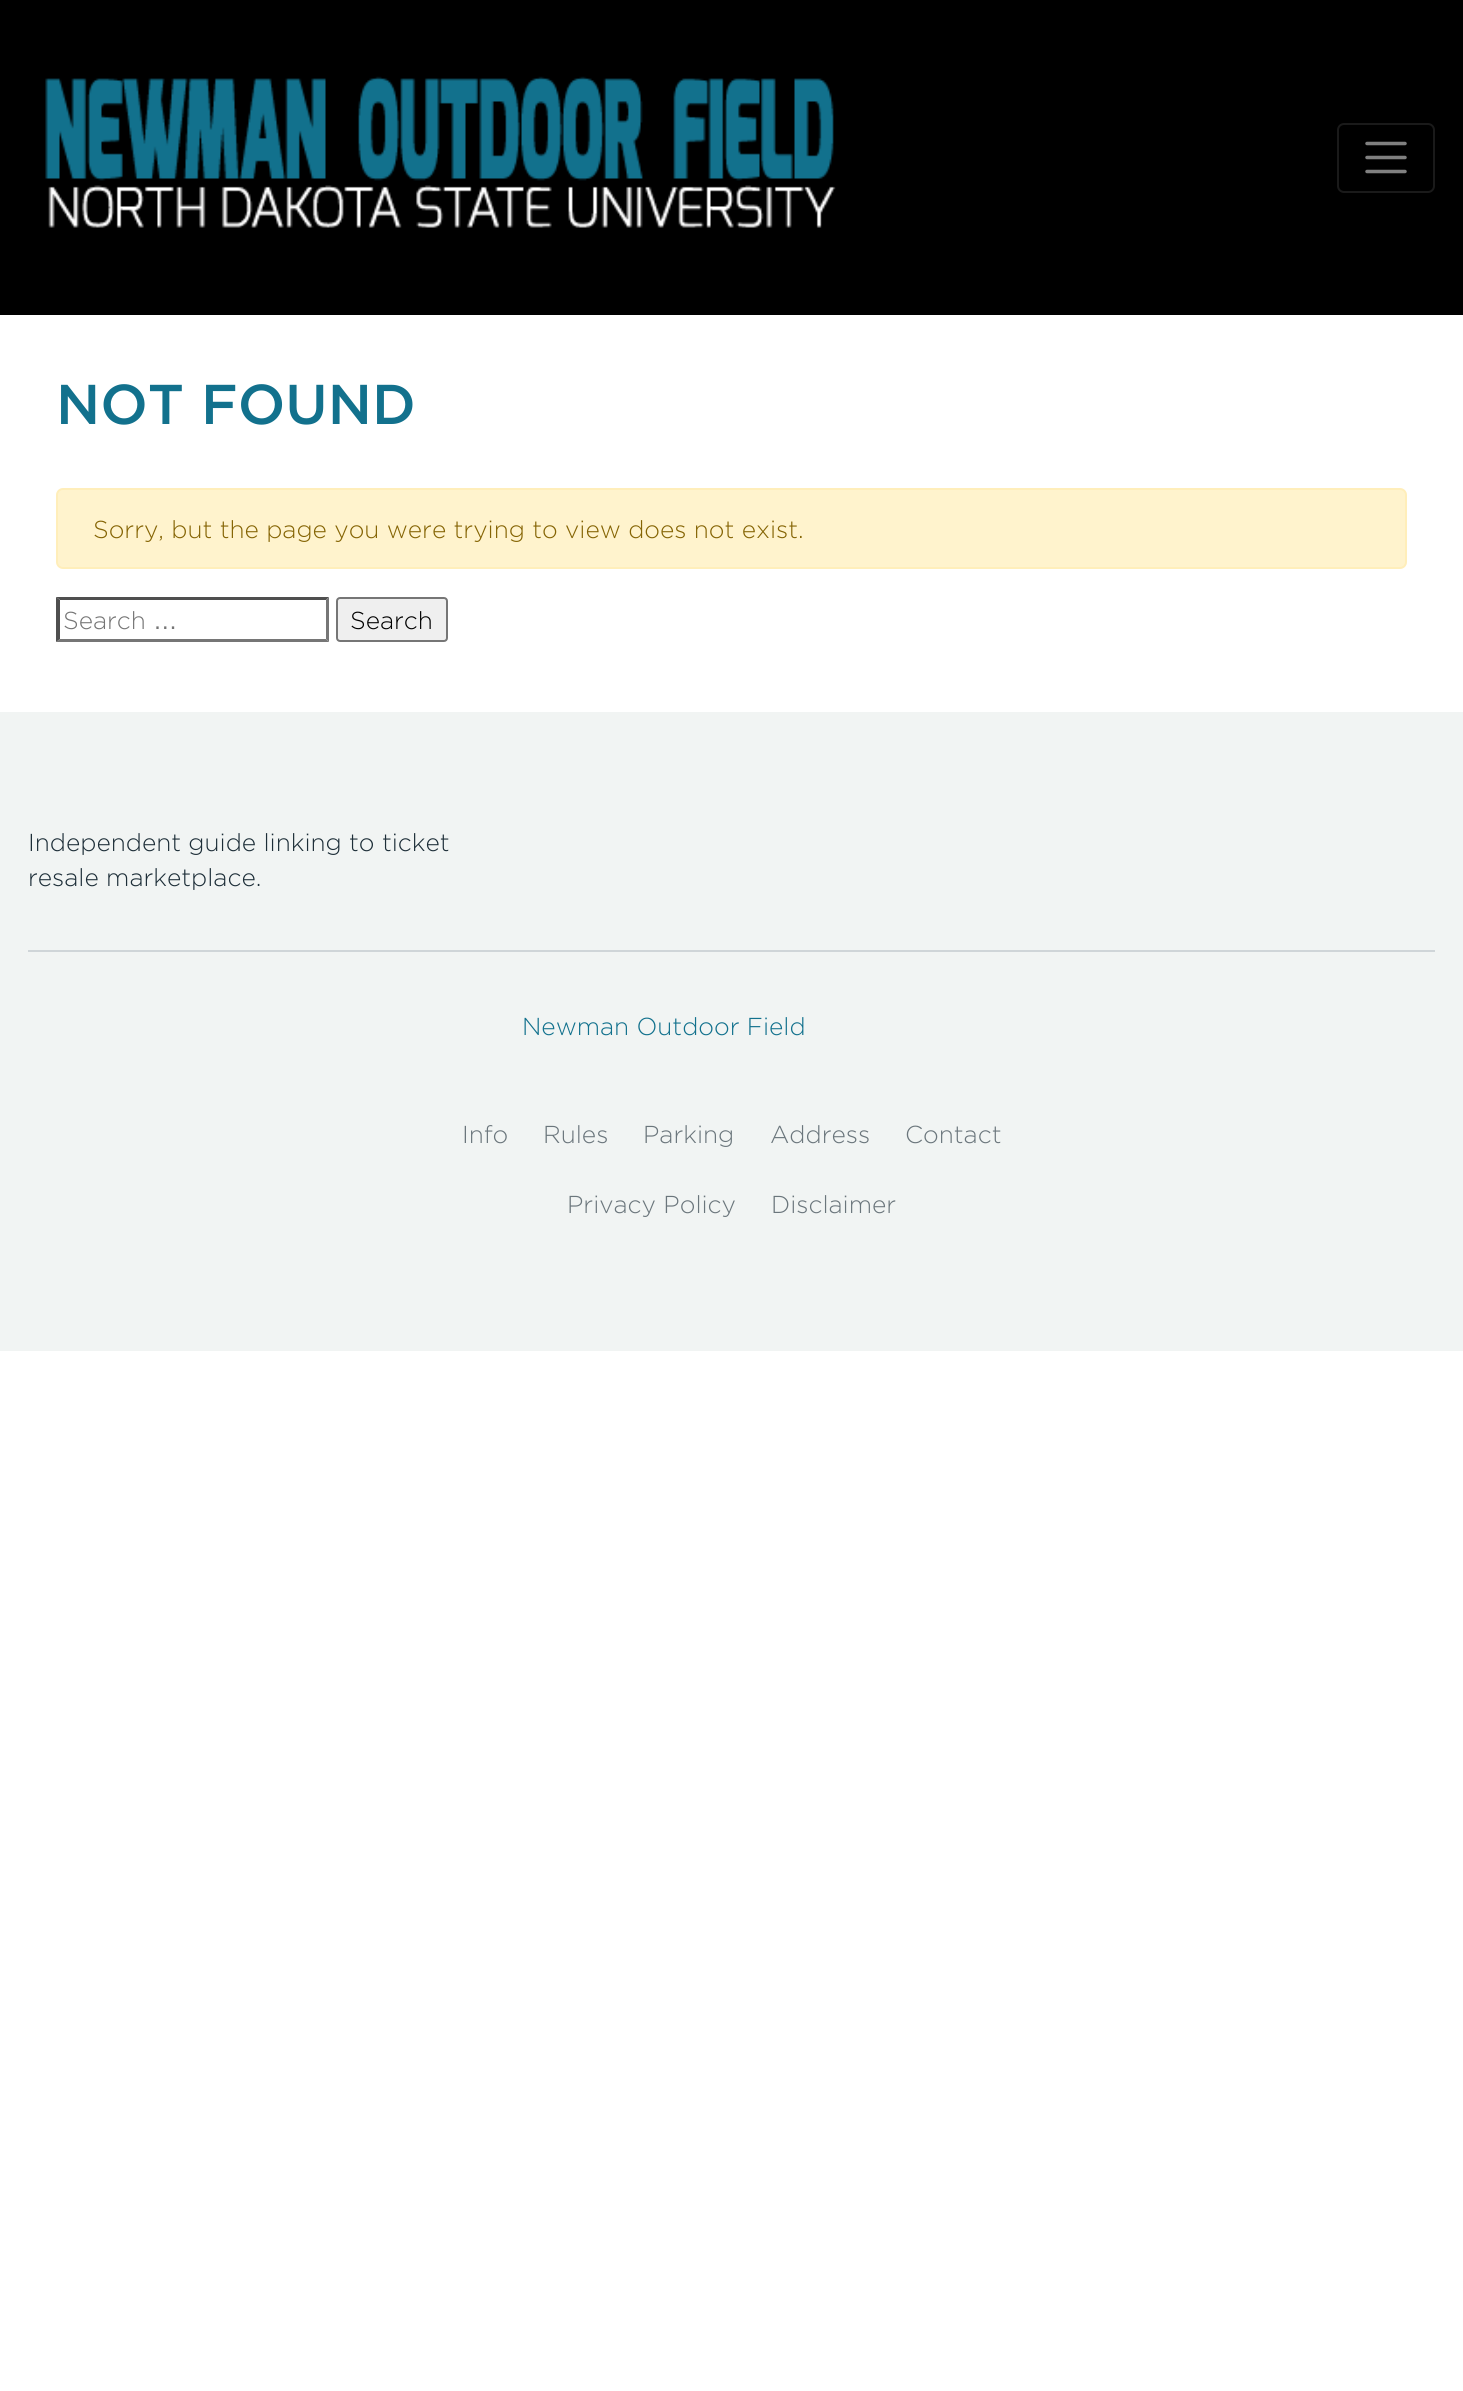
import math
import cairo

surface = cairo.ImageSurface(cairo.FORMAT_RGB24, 1463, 2391)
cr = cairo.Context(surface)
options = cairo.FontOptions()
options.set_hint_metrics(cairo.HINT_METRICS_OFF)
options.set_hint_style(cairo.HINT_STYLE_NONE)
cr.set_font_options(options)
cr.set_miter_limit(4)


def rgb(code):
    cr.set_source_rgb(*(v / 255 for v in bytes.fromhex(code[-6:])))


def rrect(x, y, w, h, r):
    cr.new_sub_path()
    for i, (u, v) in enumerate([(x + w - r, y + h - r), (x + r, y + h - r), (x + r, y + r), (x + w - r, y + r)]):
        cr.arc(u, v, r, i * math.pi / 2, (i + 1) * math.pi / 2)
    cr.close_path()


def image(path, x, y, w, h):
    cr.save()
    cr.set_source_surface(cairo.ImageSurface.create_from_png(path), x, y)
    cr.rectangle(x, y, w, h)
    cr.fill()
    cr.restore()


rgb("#ffffff")
cr.paint()
rgb("#000000")
cr.rectangle(0, 0, 1463, 315)
cr.fill()
image("img/1.png", 45, 76, 791, 152)
rrect(1338, 124, 96, 68, 6)
rgb("#1a1a1a")
cr.stroke()
cr.new_path()
cr.move_to(1367, 143.5)
cr.line_to(1405, 143.5)
cr.move_to(1367, 157.5)
cr.line_to(1405, 157.5)
cr.move_to(1367, 171.5)
cr.line_to(1405, 171.5)
rgb("#808080")
cr.set_line_width(3.5)
cr.set_line_cap(cairo.LINE_CAP_ROUND)
cr.stroke()
rgb("#fff3cd")
rrect(57, 489, 1349, 79, 6)
cr.fill_preserve()
rgb("#ffeeba")
cr.set_line_width(2)
cr.set_line_cap(cairo.LINE_CAP_BUTT)
cr.stroke()
rgb("#4f4f4f")
cr.new_path()
cr.move_to(56, 597)
cr.line_to(329, 597)
cr.line_to(326, 600)
cr.line_to(60, 600)
cr.close_path()
cr.fill()
rgb("#767676")
cr.new_path()
cr.move_to(329, 597)
cr.line_to(329, 642)
cr.line_to(326, 639)
cr.line_to(326, 600)
cr.close_path()
cr.fill()
cr.new_path()
cr.move_to(329, 642)
cr.line_to(56, 642)
cr.line_to(60, 639)
cr.line_to(326, 639)
cr.close_path()
cr.fill()
rgb("#4f4f4f")
cr.new_path()
cr.move_to(56, 642)
cr.line_to(56, 597)
cr.line_to(60, 600)
cr.line_to(60, 639)
cr.close_path()
cr.fill()
rgb("#efefef")
rrect(337, 598, 110, 43, 3)
cr.fill_preserve()
rgb("#767676")
cr.stroke()
rgb("#f1f4f3")
cr.rectangle(0, 712, 1463, 639)
cr.fill()
rgb("#cfd5d8")
cr.rectangle(28, 950, 1407, 2)
cr.fill()
cr.select_font_face("Gotham Medium")
cr.set_font_size(56)
rgb("#12718d")
cr.move_to(56, 424)
cr.show_text("NOT FOUND")
cr.select_font_face("Gotham Light")
cr.set_font_size(24.5)
rgb("#856404")
cr.move_to(93, 538)
cr.show_text("Sorry, but the page you were trying to view does not exist.")
rgb("#757575")
cr.move_to(63, 629)
cr.show_text("Search")
cr.select_font_face("Liberation Sans")
cr.move_to(153, 629)
cr.show_text("…")
cr.select_font_face("Gotham Light")
rgb("#000000")
cr.move_to(350, 629)
cr.show_text("Search")
rgb("#1d2e38")
cr.move_to(28, 851)
cr.show_text("Independent guide linking to ticket")
cr.move_to(28, 886)
cr.show_text("resale marketplace.")
rgb("#12718d")
cr.move_to(522, 1035)
cr.show_text("Newman Outdoor Field")
rgb("#6b767c")
for x, y, s in [
    (462, 1143, "Info"),
    (543, 1143, "Rules"),
    (643, 1143, "Parking"),
    (770, 1143, "Address"),
    (905, 1143, "Contact"),
    (567, 1213, "Privacy Policy"),
    (771, 1213, "Disclaimer"),
]:
    cr.move_to(x, y)
    cr.show_text(s)
surface.write_to_png("page.png")
